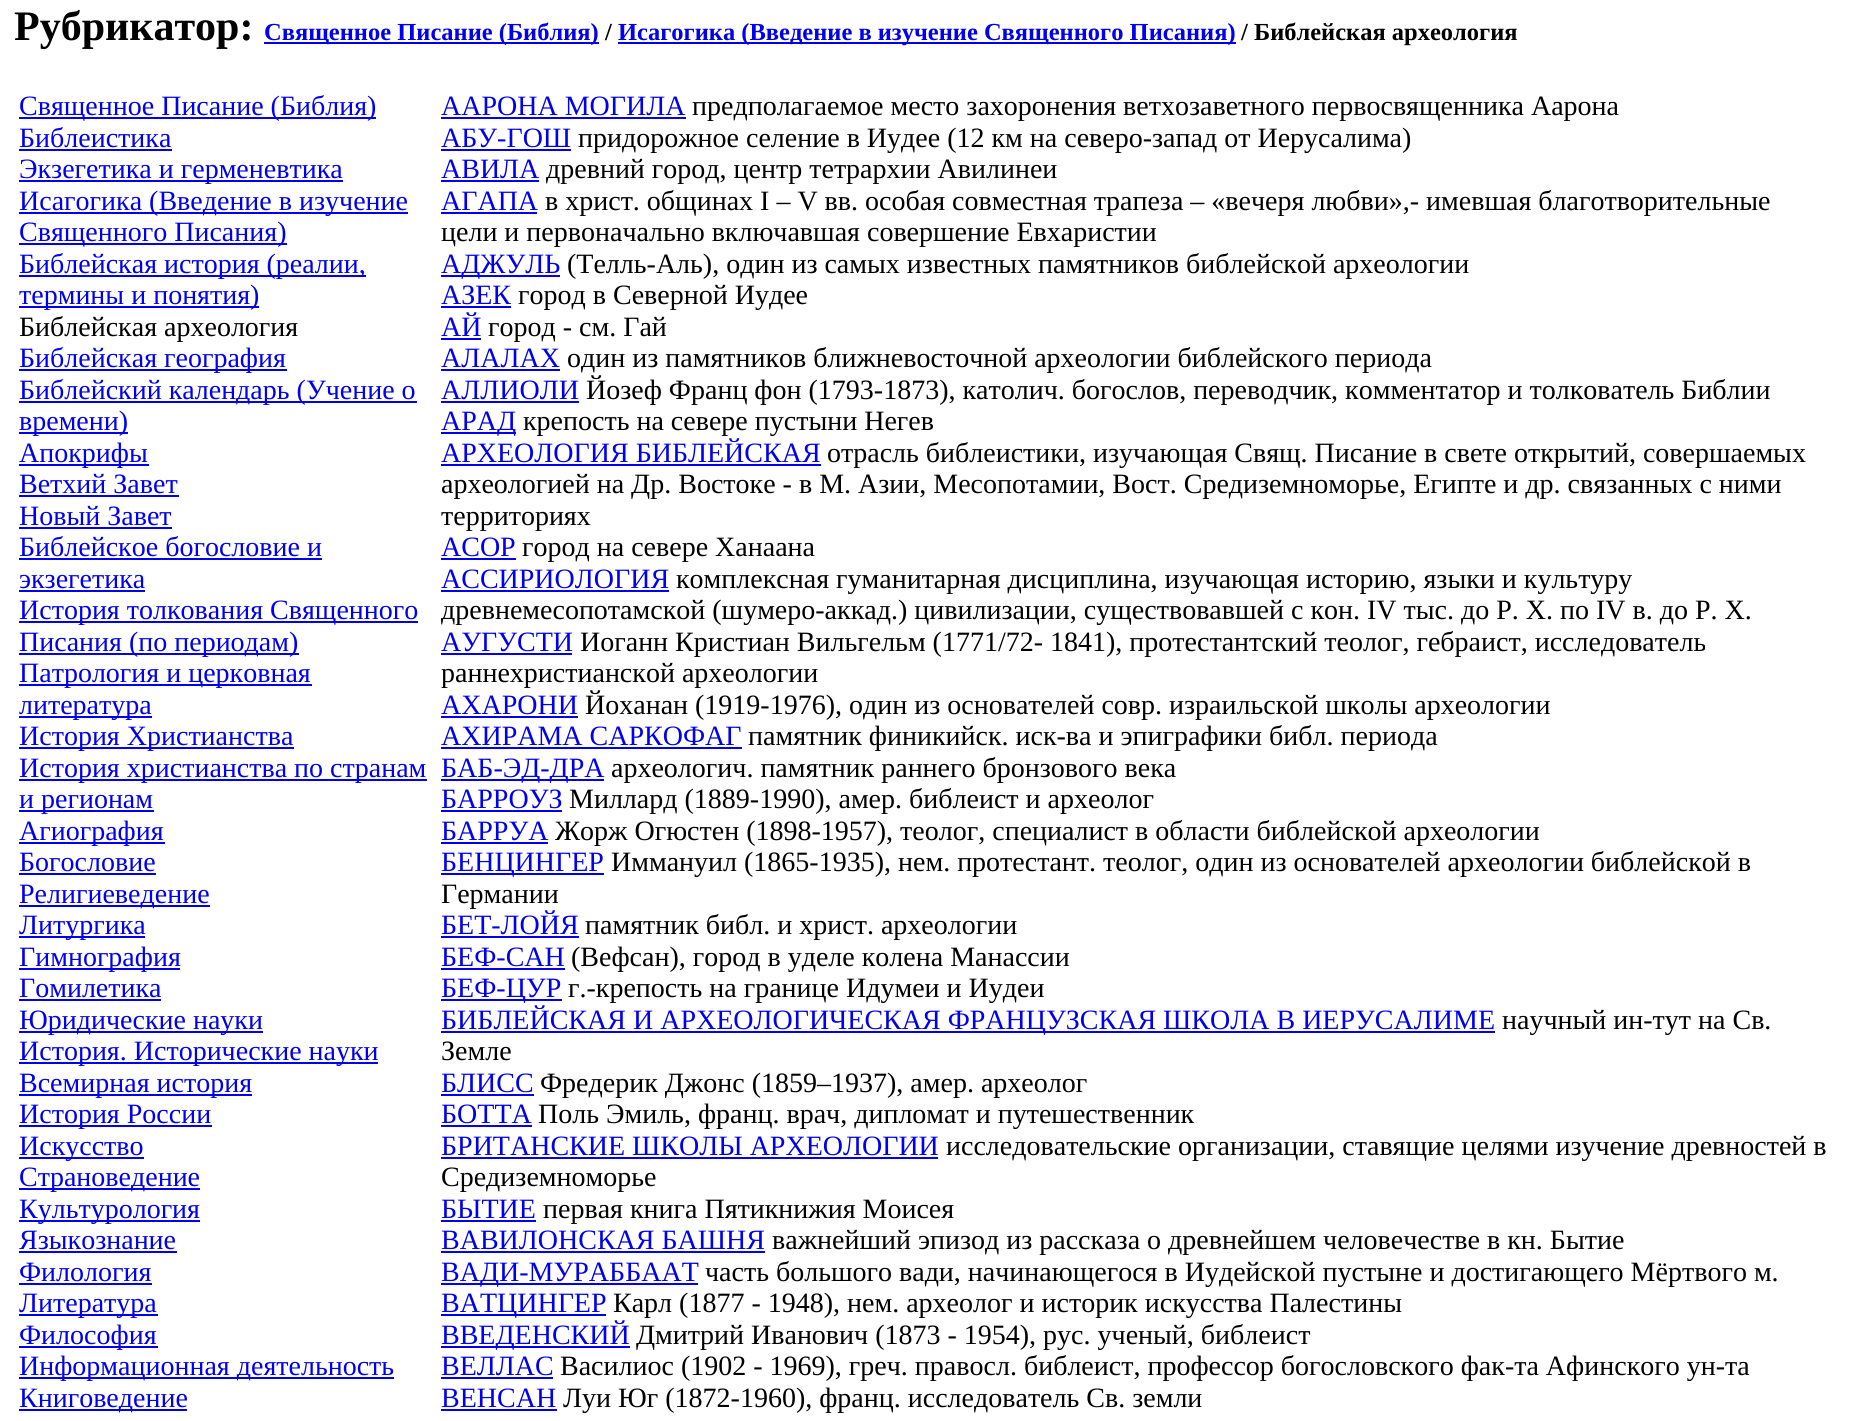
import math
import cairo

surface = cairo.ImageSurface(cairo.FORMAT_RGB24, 1851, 1421)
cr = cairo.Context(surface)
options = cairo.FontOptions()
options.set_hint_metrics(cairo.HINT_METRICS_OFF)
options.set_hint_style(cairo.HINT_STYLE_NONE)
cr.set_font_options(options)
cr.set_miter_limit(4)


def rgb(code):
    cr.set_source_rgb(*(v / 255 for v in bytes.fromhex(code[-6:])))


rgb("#ffffff")
cr.paint()
for x, y, w, h, color in [
    (264, 42, 335, 2, "#0000ee"),
    (618, 42, 618, 2, "#0000ee"),
    (19, 117, 357, 2, "#0000ee"),
    (19, 149, 153, 2, "#0000ee"),
    (19, 180, 324, 2, "#0000ee"),
    (19, 212, 389, 2, "#0000ee"),
    (19, 243, 268, 2, "#0000ee"),
    (19, 275, 347, 2, "#0000ee"),
    (19, 306, 240, 2, "#0000ee"),
    (19, 369, 268, 2, "#0000ee"),
    (19, 401, 398, 2, "#0000ee"),
    (19, 432, 109, 2, "#0000ee"),
    (19, 464, 130, 2, "#0000ee"),
    (19, 495, 160, 2, "#0000ee"),
    (19, 527, 153, 2, "#0000ee"),
    (19, 558, 303, 2, "#0000ee"),
    (19, 590, 126, 2, "#0000ee"),
    (19, 621, 399, 2, "#0000ee"),
    (19, 653, 280, 2, "#0000ee"),
    (19, 684, 293, 2, "#0000ee"),
    (19, 716, 133, 2, "#0000ee"),
    (19, 747, 275, 2, "#0000ee"),
    (19, 779, 408, 2, "#0000ee"),
    (19, 810, 135, 2, "#0000ee"),
    (19, 842, 146, 2, "#0000ee"),
    (19, 873, 137, 2, "#0000ee"),
    (19, 905, 191, 2, "#0000ee"),
    (19, 936, 126, 2, "#0000ee"),
    (19, 968, 161, 2, "#0000ee"),
    (19, 999, 142, 2, "#0000ee"),
    (19, 1031, 244, 2, "#0000ee"),
    (19, 1062, 359, 2, "#0000ee"),
    (19, 1094, 233, 2, "#0000ee"),
    (19, 1125, 193, 2, "#0000ee"),
    (19, 1157, 125, 2, "#0000ee"),
    (19, 1188, 181, 2, "#0000ee"),
    (19, 1220, 181, 2, "#0000ee"),
    (19, 1251, 158, 2, "#0000ee"),
    (19, 1283, 133, 2, "#0000ee"),
    (19, 1314, 139, 2, "#0000ee"),
    (19, 1346, 139, 2, "#0000ee"),
    (19, 1377, 375, 2, "#0000ee"),
    (19, 1409, 168, 2, "#0000ee"),
    (441, 117, 245, 2, "#0000ee"),
    (441, 149, 130, 2, "#0000ee"),
    (441, 180, 98, 2, "#0000ee"),
    (441, 212, 96, 2, "#0000ee"),
    (441, 275, 119, 2, "#0000ee"),
    (441, 306, 70, 2, "#0000ee"),
    (441, 338, 40, 2, "#0000ee"),
    (441, 369, 119, 2, "#0000ee"),
    (441, 401, 138, 2, "#0000ee"),
    (441, 432, 75, 2, "#0000ee"),
    (441, 464, 380, 2, "#0000ee"),
    (441, 558, 75, 2, "#0000ee"),
    (441, 590, 228, 2, "#0000ee"),
    (441, 653, 131, 2, "#0000ee"),
    (441, 716, 137, 2, "#0000ee"),
    (441, 747, 301, 2, "#0000ee"),
    (441, 779, 163, 2, "#0000ee"),
    (441, 810, 121, 2, "#0000ee"),
    (441, 842, 107, 2, "#0000ee"),
    (441, 873, 163, 2, "#0000ee"),
    (441, 936, 138, 2, "#0000ee"),
    (441, 968, 124, 2, "#0000ee"),
    (441, 999, 121, 2, "#0000ee"),
    (441, 1031, 1054, 2, "#0000ee"),
    (441, 1094, 93, 2, "#0000ee"),
    (441, 1125, 91, 2, "#0000ee"),
    (441, 1157, 497, 2, "#0000ee"),
    (441, 1220, 95, 2, "#0000ee"),
    (441, 1251, 324, 2, "#0000ee"),
    (441, 1283, 257, 2, "#0000ee"),
    (441, 1314, 165, 2, "#0000ee"),
    (441, 1346, 189, 2, "#0000ee"),
    (441, 1377, 112, 2, "#0000ee"),
    (441, 1409, 116, 2, "#0000ee"),
]:
    rgb(color)
    cr.rectangle(x, y, w, h)
    cr.fill()
cr.select_font_face("Liberation Serif", cairo.FONT_SLANT_NORMAL, cairo.FONT_WEIGHT_BOLD)
cr.set_font_size(42)
rgb("#000000")
cr.move_to(14, 40)
cr.show_text("Рубрикатор:")
cr.set_font_size(24.5)
rgb("#0000ee")
cr.move_to(264, 40)
cr.show_text("Священное Писание (Библия)")
rgb("#000000")
cr.move_to(605, 40)
cr.show_text("/")
rgb("#0000ee")
cr.move_to(618, 40)
cr.show_text("Исагогика (Введение в изучение Священного Писания)")
rgb("#000000")
cr.move_to(1241, 40)
cr.show_text("/ Библейская археология")
cr.select_font_face("Liberation Serif")
cr.set_font_size(28)
rgb("#0000ee")
for x, y, s in [
    (19, 115, "Священное Писание (Библия)"),
    (19, 147, "Библеистика"),
    (19, 178, "Экзегетика и герменевтика"),
    (19, 210, "Исагогика (Введение в изучение"),
    (19, 241, "Священного Писания)"),
    (19, 273, "Библейская история (реалии,"),
    (19, 304, "термины и понятия)"),
]:
    cr.move_to(x, y)
    cr.show_text(s)
rgb("#000000")
cr.move_to(19, 336)
cr.show_text("Библейская археология")
rgb("#0000ee")
for x, y, s in [
    (19, 367, "Библейская география"),
    (19, 399, "Библейский календарь (Учение о"),
    (19, 430, "времени)"),
    (19, 462, "Апокрифы"),
    (19, 493, "Ветхий Завет"),
    (19, 525, "Новый Завет"),
    (19, 556, "Библейское богословие и"),
    (19, 588, "экзегетика"),
    (19, 619, "История толкования Священного"),
    (19, 651, "Писания (по периодам)"),
    (19, 682, "Патрология и церковная"),
    (19, 714, "литература"),
    (19, 745, "История Христианства"),
    (19, 777, "История христианства по странам"),
    (19, 808, "и регионам"),
    (19, 840, "Агиография"),
    (19, 871, "Богословие"),
    (19, 903, "Религиеведение"),
    (19, 934, "Литургика"),
    (19, 966, "Гимнография"),
    (19, 997, "Гомилетика"),
    (19, 1029, "Юридические науки"),
    (19, 1060, "История. Исторические науки"),
    (19, 1092, "Всемирная история"),
    (19, 1123, "История России"),
    (19, 1155, "Искусство"),
    (19, 1186, "Страноведение"),
    (19, 1218, "Культурология"),
    (19, 1249, "Языкознание"),
    (19, 1281, "Филология"),
    (19, 1312, "Литература"),
    (19, 1344, "Философия"),
    (19, 1375, "Информационная деятельность"),
    (19, 1407, "Книговедение"),
    (441, 115, "ААРОНА МОГИЛА"),
]:
    cr.move_to(x, y)
    cr.show_text(s)
rgb("#000000")
cr.move_to(692, 115)
cr.show_text("предполагаемое место захоронения ветхозаветного первосвященника Аарона")
rgb("#0000ee")
cr.move_to(441, 147)
cr.show_text("АБУ-ГОШ")
rgb("#000000")
cr.move_to(578, 147)
cr.show_text("придорожное селение в Иудее (12 км на северо-запад от Иерусалима)")
rgb("#0000ee")
cr.move_to(441, 178)
cr.show_text("АВИЛА")
rgb("#000000")
cr.move_to(546, 178)
cr.show_text("древний город, центр тетрархии Авилинеи")
rgb("#0000ee")
cr.move_to(441, 210)
cr.show_text("АГАПА")
rgb("#000000")
cr.move_to(545, 210)
cr.show_text("в христ. общинах I – V вв. особая совместная трапеза – «вечеря любви»,- имевшая благотворительные")
cr.move_to(441, 241)
cr.show_text("цели и первоначально включавшая совершение Евхаристии")
rgb("#0000ee")
cr.move_to(441, 273)
cr.show_text("АДЖУЛЬ")
rgb("#000000")
cr.move_to(567, 273)
cr.show_text("(Телль-Аль), один из самых известных памятников библейской археологии")
rgb("#0000ee")
cr.move_to(441, 304)
cr.show_text("АЗЕК")
rgb("#000000")
cr.move_to(518, 304)
cr.show_text("город в Северной Иудее")
rgb("#0000ee")
cr.move_to(441, 336)
cr.show_text("АЙ")
rgb("#000000")
cr.move_to(488, 336)
cr.show_text("город - см. Гай")
rgb("#0000ee")
cr.move_to(441, 367)
cr.show_text("АЛАЛАХ")
rgb("#000000")
cr.move_to(567, 367)
cr.show_text("один из памятников ближневосточной археологии библейского периода")
rgb("#0000ee")
cr.move_to(441, 399)
cr.show_text("АЛЛИОЛИ")
rgb("#000000")
cr.move_to(586, 399)
cr.show_text("Йозеф Франц фон (1793-1873), католич. богослов, переводчик, комментатор и толкователь Библии")
rgb("#0000ee")
cr.move_to(441, 430)
cr.show_text("АРАД")
rgb("#000000")
cr.move_to(523, 430)
cr.show_text("крепость на севере пустыни Негев")
rgb("#0000ee")
cr.move_to(441, 462)
cr.show_text("АРХЕОЛОГИЯ БИБЛЕЙСКАЯ")
rgb("#000000")
for x, y, s in [
    (827, 462, "отрасль библеистики, изучающая Свящ. Писание в свете открытий, совершаемых"),
    (441, 493, "археологией на Др. Востоке - в М. Азии, Месопотамии, Вост. Средиземноморье, Египте и др. связанных с ними"),
    (441, 525, "территориях"),
]:
    cr.move_to(x, y)
    cr.show_text(s)
rgb("#0000ee")
cr.move_to(441, 556)
cr.show_text("АСОР")
rgb("#000000")
cr.move_to(522, 556)
cr.show_text("город на севере Ханаана")
rgb("#0000ee")
cr.move_to(441, 588)
cr.show_text("АССИРИОЛОГИЯ")
rgb("#000000")
cr.move_to(676, 588)
cr.show_text("комплексная гуманитарная дисциплина, изучающая историю, языки и культуру")
cr.move_to(441, 619)
cr.show_text("древнемесопотамской (шумеро-аккад.) цивилизации, существовавшей с кон. IV тыс. до Р. Х. по IV в. до Р. Х.")
rgb("#0000ee")
cr.move_to(441, 651)
cr.show_text("АУГУСТИ")
rgb("#000000")
cr.move_to(580, 651)
cr.show_text("Иоганн Кристиан Вильгельм (1771/72- 1841), протестантский теолог, гебраист, исследователь")
cr.move_to(441, 682)
cr.show_text("раннехристианской археологии")
rgb("#0000ee")
cr.move_to(441, 714)
cr.show_text("АХАРОНИ")
rgb("#000000")
cr.move_to(585, 714)
cr.show_text("Йоханан (1919-1976), один из основателей совр. израильской школы археологии")
rgb("#0000ee")
cr.move_to(441, 745)
cr.show_text("АХИРАМА САРКОФАГ")
rgb("#000000")
cr.move_to(748, 745)
cr.show_text("памятник финикийск. иск-ва и эпиграфики библ. периода")
rgb("#0000ee")
cr.move_to(441, 777)
cr.show_text("БАБ-ЭД-ДРА")
rgb("#000000")
cr.move_to(611, 777)
cr.show_text("археологич. памятник раннего бронзового века")
rgb("#0000ee")
cr.move_to(441, 808)
cr.show_text("БАРРОУЗ")
rgb("#000000")
cr.move_to(569, 808)
cr.show_text("Миллард (1889-1990), амер. библеист и археолог")
rgb("#0000ee")
cr.move_to(441, 840)
cr.show_text("БАРРУА")
rgb("#000000")
cr.move_to(555, 840)
cr.show_text("Жорж Огюстен (1898-1957), теолог, специалист в области библейской археологии")
rgb("#0000ee")
cr.move_to(441, 871)
cr.show_text("БЕНЦИНГЕР")
rgb("#000000")
cr.move_to(611, 871)
cr.show_text("Иммануил (1865-1935), нем. протестант. теолог, один из основателей археологии библейской в")
cr.move_to(441, 903)
cr.show_text("Германии")
rgb("#0000ee")
cr.move_to(441, 934)
cr.show_text("БЕТ-ЛОЙЯ")
rgb("#000000")
cr.move_to(585, 934)
cr.show_text("памятник библ. и христ. археологии")
rgb("#0000ee")
cr.move_to(441, 966)
cr.show_text("БЕФ-САН")
rgb("#000000")
cr.move_to(571, 966)
cr.show_text("(Вефсан), город в уделе колена Манассии")
rgb("#0000ee")
cr.move_to(441, 997)
cr.show_text("БЕФ-ЦУР")
rgb("#000000")
cr.move_to(568, 997)
cr.show_text("г.-крепость на границе Идумеи и Иудеи")
rgb("#0000ee")
cr.move_to(441, 1029)
cr.show_text("БИБЛЕЙСКАЯ И АРХЕОЛОГИЧЕСКАЯ ФРАНЦУЗСКАЯ ШКОЛА В ИЕРУСАЛИМЕ")
rgb("#000000")
cr.move_to(1502, 1029)
cr.show_text("научный ин-тут на Св.")
cr.move_to(441, 1060)
cr.show_text("Земле")
rgb("#0000ee")
cr.move_to(441, 1092)
cr.show_text("БЛИСС")
rgb("#000000")
cr.move_to(540, 1092)
cr.show_text("Фредерик Джонс (1859–1937), амер. археолог")
rgb("#0000ee")
cr.move_to(441, 1123)
cr.show_text("БОТТА")
rgb("#000000")
cr.move_to(538, 1123)
cr.show_text("Поль Эмиль, франц. врач, дипломат и путешественник")
rgb("#0000ee")
cr.move_to(441, 1155)
cr.show_text("БРИТАНСКИЕ ШКОЛЫ АРХЕОЛОГИИ")
rgb("#000000")
cr.move_to(946, 1155)
cr.show_text("исследовательские организации, ставящие целями изучение древностей в")
cr.move_to(441, 1186)
cr.show_text("Средиземноморье")
rgb("#0000ee")
cr.move_to(441, 1218)
cr.show_text("БЫТИЕ")
rgb("#000000")
cr.move_to(543, 1218)
cr.show_text("первая книга Пятикнижия Моисея")
rgb("#0000ee")
cr.move_to(441, 1249)
cr.show_text("ВАВИЛОНСКАЯ БАШНЯ")
rgb("#000000")
cr.move_to(772, 1249)
cr.show_text("важнейший эпизод из рассказа о древнейшем человечестве в кн. Бытие")
rgb("#0000ee")
cr.move_to(441, 1281)
cr.show_text("ВАДИ-МУРАББААТ")
rgb("#000000")
cr.move_to(705, 1281)
cr.show_text("часть большого вади, начинающегося в Иудейской пустыне и достигающего Мёртвого м.")
rgb("#0000ee")
cr.move_to(441, 1312)
cr.show_text("ВАТЦИНГЕР")
rgb("#000000")
cr.move_to(613, 1312)
cr.show_text("Карл (1877 - 1948), нем. археолог и историк искусства Палестины")
rgb("#0000ee")
cr.move_to(441, 1344)
cr.show_text("ВВЕДЕНСКИЙ")
rgb("#000000")
cr.move_to(636, 1344)
cr.show_text("Дмитрий Иванович (1873 - 1954), рус. ученый, библеист")
rgb("#0000ee")
cr.move_to(441, 1375)
cr.show_text("ВЕЛЛАС")
rgb("#000000")
cr.move_to(560, 1375)
cr.show_text("Василиос (1902 - 1969), греч. правосл. библеист, профессор богословского фак-та Афинского ун-та")
rgb("#0000ee")
cr.move_to(441, 1407)
cr.show_text("ВЕНСАН")
rgb("#000000")
cr.move_to(563, 1407)
cr.show_text("Луи Юг (1872-1960), франц. исследователь Св. земли")
surface.write_to_png("page.png")
